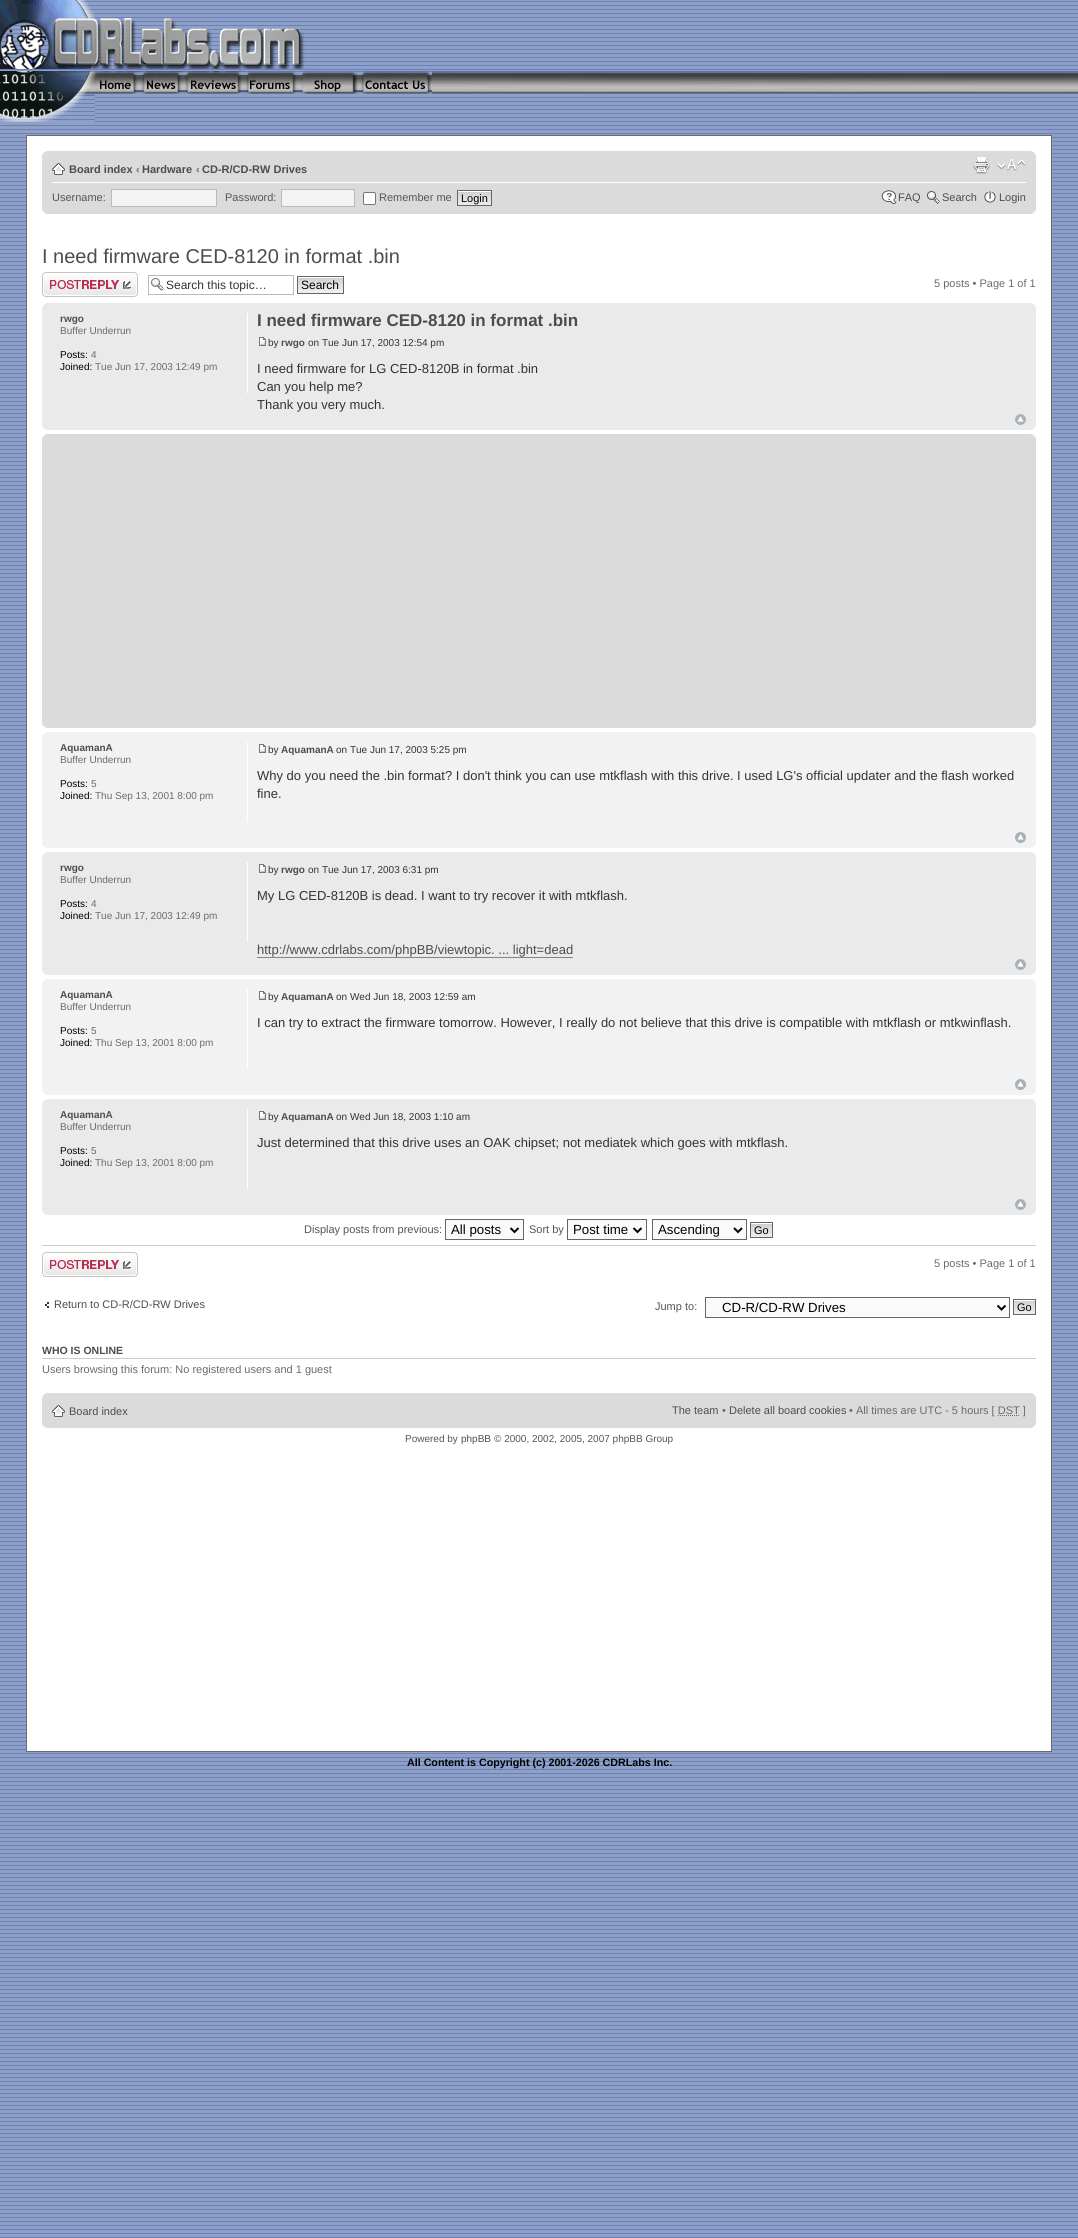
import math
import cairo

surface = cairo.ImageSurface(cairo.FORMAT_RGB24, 1078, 2238)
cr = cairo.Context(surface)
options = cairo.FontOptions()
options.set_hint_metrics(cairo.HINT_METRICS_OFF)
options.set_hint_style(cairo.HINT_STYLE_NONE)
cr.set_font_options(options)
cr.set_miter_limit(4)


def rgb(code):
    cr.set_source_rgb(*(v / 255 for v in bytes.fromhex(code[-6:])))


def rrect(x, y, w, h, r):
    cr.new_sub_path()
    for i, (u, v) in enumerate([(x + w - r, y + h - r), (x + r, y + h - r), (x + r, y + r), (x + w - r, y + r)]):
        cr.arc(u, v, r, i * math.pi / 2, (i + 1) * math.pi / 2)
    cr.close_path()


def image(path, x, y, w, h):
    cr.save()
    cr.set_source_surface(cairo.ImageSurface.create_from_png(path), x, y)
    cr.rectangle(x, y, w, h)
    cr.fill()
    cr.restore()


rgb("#ffffff")
cr.paint()
image("img/1.png", 0, 0, 1078, 2238)
image("img/2.png", 0, 0, 315, 69)
image("img/3.png", 0, 71, 95, 51)
image("img/4.png", 95, 71, 44, 23)
image("img/5.png", 139, 71, 44, 23)
image("img/6.png", 183, 71, 60, 23)
image("img/7.png", 243, 71, 55, 23)
image("img/8.png", 298, 71, 60, 23)
image("img/9.png", 358, 71, 74, 23)
image("img/10.png", 432, 71, 646, 23)
rgb("#ffffff")
cr.rectangle(26.5, 135.5, 1025, 1616)
cr.fill_preserve()
rgb("#6b6b6b")
cr.set_line_width(1)
cr.stroke()
rgb("#dbdbdb")
cr.rectangle(42, 151, 994, 63)
cr.fill()
image("img/11.png", 42, 151, 5, 5)
image("img/12.png", 1031, 151, 5, 5)
rgb("#ffffff")
cr.rectangle(52, 182, 974, 1)
cr.fill()
image("img/13.png", 52, 163, 13, 12)
image("img/14.png", 973, 157, 17, 17)
image("img/15.png", 997, 159, 29, 12)
rgb("#f2f3f3")
cr.rectangle(111.5, 189.5, 105, 17)
cr.fill_preserve()
rgb("#bababa")
cr.stroke()
rgb("#f2f3f3")
cr.rectangle(281.5, 189.5, 73, 17)
cr.fill_preserve()
rgb("#bababa")
cr.stroke()
rgb("#ffffff")
rrect(363.5, 192.5, 12, 12, 1.5)
cr.fill_preserve()
rgb("#767676")
cr.stroke()
image("img/16.png", 458, 191, 33, 14)
cr.rectangle(457.5, 190.5, 34, 15)
rgb("#666666")
cr.stroke()
image("img/17.png", 881, 190, 16, 14)
image("img/18.png", 927, 191, 13, 13)
image("img/19.png", 984, 191, 12, 12)
image("img/20.png", 42, 209, 5, 5)
image("img/21.png", 1031, 209, 5, 5)
image("img/22.png", 42, 272, 96, 25)
image("img/23.png", 151, 278, 13, 13)
cr.rectangle(148.5, 275.5, 145, 19)
rgb("#bababa")
cr.stroke()
image("img/24.png", 298, 277, 45, 16)
cr.rectangle(297.5, 276.5, 46, 17)
rgb("#666666")
cr.stroke()
rgb("#eaeaea")
cr.rectangle(42, 303, 994, 127)
cr.fill()
image("img/25.png", 42, 303, 5, 5)
image("img/26.png", 1031, 303, 5, 5)
rgb("#ffffff")
cr.rectangle(247, 313, 1, 80)
cr.fill()
image("img/27.png", 259, 337, 7, 9)
image("img/28.png", 1015, 414, 11, 11)
image("img/29.png", 42, 425, 5, 5)
image("img/30.png", 1031, 425, 5, 5)
rgb("#dbdbdb")
cr.rectangle(42, 434, 994, 294)
cr.fill()
image("img/11.png", 42, 434, 5, 5)
image("img/12.png", 1031, 434, 5, 5)
image("img/20.png", 42, 723, 5, 5)
image("img/21.png", 1031, 723, 5, 5)
rgb("#f2f2f2")
cr.rectangle(42, 732, 994, 116)
cr.fill()
image("img/31.png", 42, 732, 4, 4)
image("img/32.png", 1032, 732, 4, 4)
rgb("#ffffff")
cr.rectangle(247, 742, 1, 80)
cr.fill()
image("img/33.png", 259, 744, 7, 9)
image("img/34.png", 1015, 832, 11, 11)
image("img/35.png", 42, 844, 4, 4)
image("img/36.png", 1032, 844, 4, 4)
rgb("#eaeaea")
cr.rectangle(42, 852, 994, 123)
cr.fill()
image("img/25.png", 42, 852, 5, 5)
image("img/26.png", 1031, 852, 5, 5)
rgb("#ffffff")
cr.rectangle(247, 862, 1, 80)
cr.fill()
image("img/27.png", 259, 864, 7, 9)
rgb("#848484")
cr.rectangle(257, 957, 316, 1)
cr.fill()
image("img/28.png", 1015, 959, 11, 11)
image("img/29.png", 42, 970, 5, 5)
image("img/30.png", 1031, 970, 5, 5)
rgb("#f2f2f2")
cr.rectangle(42, 979, 994, 116)
cr.fill()
image("img/31.png", 42, 979, 4, 4)
image("img/32.png", 1032, 979, 4, 4)
rgb("#ffffff")
cr.rectangle(247, 989, 1, 80)
cr.fill()
image("img/33.png", 259, 991, 7, 9)
image("img/34.png", 1015, 1079, 11, 11)
image("img/35.png", 42, 1091, 4, 4)
image("img/36.png", 1032, 1091, 4, 4)
rgb("#eaeaea")
cr.rectangle(42, 1099, 994, 116)
cr.fill()
image("img/25.png", 42, 1099, 5, 5)
image("img/26.png", 1031, 1099, 5, 5)
rgb("#ffffff")
cr.rectangle(247, 1109, 1, 80)
cr.fill()
image("img/27.png", 259, 1111, 7, 9)
image("img/28.png", 1015, 1199, 11, 11)
image("img/29.png", 42, 1210, 5, 5)
image("img/30.png", 1031, 1210, 5, 5)
rgb("#fafafa")
cr.rectangle(445.5, 1219.5, 78, 20)
cr.fill_preserve()
rgb("#666666")
cr.stroke()
cr.new_path()
cr.move_to(510.5, 1228)
cr.line_to(514.5, 1232)
cr.line_to(518.5, 1228)
rgb("#000000")
cr.set_line_width(2)
cr.stroke()
rgb("#fafafa")
cr.rectangle(567.5, 1219.5, 79, 20)
cr.fill_preserve()
rgb("#666666")
cr.set_line_width(1)
cr.stroke()
cr.new_path()
cr.move_to(633.5, 1228)
cr.line_to(637.5, 1232)
cr.line_to(641.5, 1228)
rgb("#000000")
cr.set_line_width(2)
cr.stroke()
rgb("#fafafa")
cr.rectangle(652.5, 1219.5, 94, 20)
cr.fill_preserve()
rgb("#666666")
cr.set_line_width(1)
cr.stroke()
cr.new_path()
cr.move_to(734, 1228)
cr.line_to(738, 1232)
cr.line_to(742, 1228)
rgb("#000000")
cr.set_line_width(2)
cr.stroke()
image("img/37.png", 751, 1223, 21, 14)
cr.rectangle(750.5, 1222.5, 22, 15)
rgb("#666666")
cr.set_line_width(1)
cr.stroke()
rgb("#cccccc")
cr.rectangle(42, 1245, 994, 1)
cr.fill()
image("img/22.png", 42, 1252, 96, 25)
image("img/38.png", 45, 1302, 4, 6)
rgb("#fafafa")
cr.rectangle(705.5, 1297.5, 304, 20)
cr.fill_preserve()
rgb("#666666")
cr.stroke()
cr.new_path()
cr.move_to(997.5, 1305.5)
cr.line_to(1001.5, 1309.5)
cr.line_to(1005.5, 1305.5)
rgb("#000000")
cr.set_line_width(2)
cr.stroke()
image("img/37.png", 1014, 1300, 21, 14)
cr.rectangle(1013.5, 1299.5, 22, 15)
rgb("#666666")
cr.set_line_width(1)
cr.stroke()
rgb("#cccccc")
cr.rectangle(42, 1358, 994, 1)
cr.fill()
rgb("#dbdbdb")
cr.rectangle(42, 1393, 994, 35)
cr.fill()
image("img/11.png", 42, 1393, 5, 5)
image("img/12.png", 1031, 1393, 5, 5)
image("img/13.png", 52, 1405, 13, 12)
cr.new_path()
cr.move_to(998, 1415.5)
cr.line_to(1020, 1415.5)
rgb("#6b6b6b")
cr.set_dash([1, 1])
cr.stroke()
image("img/20.png", 42, 1423, 5, 5)
image("img/21.png", 1031, 1423, 5, 5)
cr.select_font_face("Liberation Sans", cairo.FONT_SLANT_NORMAL, cairo.FONT_WEIGHT_BOLD)
cr.set_font_size(11)
rgb("#4d4d4d")
cr.move_to(69, 173)
cr.show_text("Board index")
rgb("#6b6b6b")
cr.move_to(136, 173)
cr.show_text("‹")
rgb("#4d4d4d")
cr.move_to(142, 173)
cr.show_text("Hardware")
rgb("#6b6b6b")
cr.move_to(196, 173)
cr.show_text("‹")
rgb("#4d4d4d")
cr.move_to(202, 173)
cr.show_text("CD-R/CD-RW Drives")
cr.select_font_face("Liberation Sans")
rgb("#555555")
for x, y, s in [
    (52, 201, "Username:"),
    (225, 201, "Password:"),
    (379, 201, "Remember me"),
]:
    cr.move_to(x, y)
    cr.show_text(s)
rgb("#000000")
cr.move_to(461, 202)
cr.show_text("Login")
rgb("#4d4d4d")
for x, y, s in [
    (898, 201, "FAQ"),
    (942, 201, "Search"),
    (999, 201, "Login"),
]:
    cr.move_to(x, y)
    cr.show_text(s)
cr.set_font_size(20)
cr.move_to(42, 263)
cr.show_text("I need firmware CED-8120 in format .bin")
cr.set_font_size(12)
rgb("#333333")
cr.move_to(166, 289)
cr.show_text("Search this topic…")
rgb("#000000")
cr.move_to(301, 289)
cr.show_text("Search")
cr.set_font_size(11)
rgb("#6b6b6b")
cr.move_to(934, 287)
cr.show_text("5 posts • Page 1 of 1")
cr.select_font_face("Liberation Sans", cairo.FONT_SLANT_NORMAL, cairo.FONT_WEIGHT_BOLD)
cr.set_font_size(10)
rgb("#4d4d4d")
cr.move_to(60, 322)
cr.show_text("rwgo")
cr.select_font_face("Liberation Sans")
rgb("#6b6b6b")
cr.move_to(60, 334)
cr.show_text("Buffer Underrun")
rgb("#000000")
cr.move_to(60, 358)
cr.show_text("Posts:")
rgb("#6b6b6b")
cr.move_to(91, 358)
cr.show_text("4")
rgb("#000000")
cr.move_to(60, 370)
cr.show_text("Joined:")
rgb("#6b6b6b")
cr.move_to(95, 370)
cr.show_text("Tue Jun 17, 2003 12:49 pm")
cr.select_font_face("Liberation Sans", cairo.FONT_SLANT_NORMAL, cairo.FONT_WEIGHT_BOLD)
cr.set_font_size(17)
rgb("#4d4d4d")
cr.move_to(257, 326)
cr.show_text("I need firmware CED-8120 in format .bin")
cr.select_font_face("Liberation Sans")
cr.set_font_size(10)
rgb("#333333")
cr.move_to(268, 346)
cr.show_text("by")
cr.select_font_face("Liberation Sans", cairo.FONT_SLANT_NORMAL, cairo.FONT_WEIGHT_BOLD)
rgb("#4d4d4d")
cr.move_to(281, 346)
cr.show_text("rwgo")
cr.select_font_face("Liberation Sans")
rgb("#333333")
cr.move_to(308, 346)
cr.show_text("on Tue Jun 17, 2003 12:54 pm")
cr.set_font_size(13)
for x, y, s in [
    (257, 373, "I need firmware for LG CED-8120B in format .bin"),
    (257, 391, "Can you help me?"),
    (257, 409, "Thank you very much."),
]:
    cr.move_to(x, y)
    cr.show_text(s)
cr.select_font_face("Liberation Sans", cairo.FONT_SLANT_NORMAL, cairo.FONT_WEIGHT_BOLD)
cr.set_font_size(10)
rgb("#4d4d4d")
cr.move_to(60, 751)
cr.show_text("AquamanA")
cr.select_font_face("Liberation Sans")
rgb("#6b6b6b")
cr.move_to(60, 763)
cr.show_text("Buffer Underrun")
rgb("#000000")
cr.move_to(60, 787)
cr.show_text("Posts:")
rgb("#6b6b6b")
cr.move_to(91, 787)
cr.show_text("5")
rgb("#000000")
cr.move_to(60, 799)
cr.show_text("Joined:")
rgb("#6b6b6b")
cr.move_to(95, 799)
cr.show_text("Thu Sep 13, 2001 8:00 pm")
rgb("#333333")
cr.move_to(268, 753)
cr.show_text("by")
cr.select_font_face("Liberation Sans", cairo.FONT_SLANT_NORMAL, cairo.FONT_WEIGHT_BOLD)
rgb("#4d4d4d")
cr.move_to(281, 753)
cr.show_text("AquamanA")
cr.select_font_face("Liberation Sans")
rgb("#333333")
cr.move_to(336, 753)
cr.show_text("on Tue Jun 17, 2003 5:25 pm")
cr.set_font_size(13)
cr.move_to(257, 780)
cr.show_text("Why do you need the .bin format? I don't think you can use mtkflash with this drive. I used LG's official updater and the flash worked")
cr.move_to(257, 798)
cr.show_text("fine.")
cr.select_font_face("Liberation Sans", cairo.FONT_SLANT_NORMAL, cairo.FONT_WEIGHT_BOLD)
cr.set_font_size(10)
rgb("#4d4d4d")
cr.move_to(60, 871)
cr.show_text("rwgo")
cr.select_font_face("Liberation Sans")
rgb("#6b6b6b")
cr.move_to(60, 883)
cr.show_text("Buffer Underrun")
rgb("#000000")
cr.move_to(60, 907)
cr.show_text("Posts:")
rgb("#6b6b6b")
cr.move_to(91, 907)
cr.show_text("4")
rgb("#000000")
cr.move_to(60, 919)
cr.show_text("Joined:")
rgb("#6b6b6b")
cr.move_to(95, 919)
cr.show_text("Tue Jun 17, 2003 12:49 pm")
rgb("#333333")
cr.move_to(268, 873)
cr.show_text("by")
cr.select_font_face("Liberation Sans", cairo.FONT_SLANT_NORMAL, cairo.FONT_WEIGHT_BOLD)
rgb("#4d4d4d")
cr.move_to(281, 873)
cr.show_text("rwgo")
cr.select_font_face("Liberation Sans")
rgb("#333333")
cr.move_to(308, 873)
cr.show_text("on Tue Jun 17, 2003 6:31 pm")
cr.set_font_size(13)
cr.move_to(257, 900)
cr.show_text("My LG CED-8120B is dead. I want to try recover it with mtkflash.")
rgb("#4d4d4d")
cr.move_to(257, 954)
cr.show_text("http://www.cdrlabs.com/phpBB/viewtopic. ... light=dead")
cr.select_font_face("Liberation Sans", cairo.FONT_SLANT_NORMAL, cairo.FONT_WEIGHT_BOLD)
cr.set_font_size(10)
cr.move_to(60, 998)
cr.show_text("AquamanA")
cr.select_font_face("Liberation Sans")
rgb("#6b6b6b")
cr.move_to(60, 1010)
cr.show_text("Buffer Underrun")
rgb("#000000")
cr.move_to(60, 1034)
cr.show_text("Posts:")
rgb("#6b6b6b")
cr.move_to(91, 1034)
cr.show_text("5")
rgb("#000000")
cr.move_to(60, 1046)
cr.show_text("Joined:")
rgb("#6b6b6b")
cr.move_to(95, 1046)
cr.show_text("Thu Sep 13, 2001 8:00 pm")
rgb("#333333")
cr.move_to(268, 1000)
cr.show_text("by")
cr.select_font_face("Liberation Sans", cairo.FONT_SLANT_NORMAL, cairo.FONT_WEIGHT_BOLD)
rgb("#4d4d4d")
cr.move_to(281, 1000)
cr.show_text("AquamanA")
cr.select_font_face("Liberation Sans")
rgb("#333333")
cr.move_to(336, 1000)
cr.show_text("on Wed Jun 18, 2003 12:59 am")
cr.set_font_size(13)
cr.move_to(257, 1027)
cr.show_text("I can try to extract the firmware tomorrow. However, I really do not believe that this drive is compatible with mtkflash or mtkwinflash.")
cr.select_font_face("Liberation Sans", cairo.FONT_SLANT_NORMAL, cairo.FONT_WEIGHT_BOLD)
cr.set_font_size(10)
rgb("#4d4d4d")
cr.move_to(60, 1118)
cr.show_text("AquamanA")
cr.select_font_face("Liberation Sans")
rgb("#6b6b6b")
cr.move_to(60, 1130)
cr.show_text("Buffer Underrun")
rgb("#000000")
cr.move_to(60, 1154)
cr.show_text("Posts:")
rgb("#6b6b6b")
cr.move_to(91, 1154)
cr.show_text("5")
rgb("#000000")
cr.move_to(60, 1166)
cr.show_text("Joined:")
rgb("#6b6b6b")
cr.move_to(95, 1166)
cr.show_text("Thu Sep 13, 2001 8:00 pm")
rgb("#333333")
cr.move_to(268, 1120)
cr.show_text("by")
cr.select_font_face("Liberation Sans", cairo.FONT_SLANT_NORMAL, cairo.FONT_WEIGHT_BOLD)
rgb("#4d4d4d")
cr.move_to(281, 1120)
cr.show_text("AquamanA")
cr.select_font_face("Liberation Sans")
rgb("#333333")
cr.move_to(336, 1120)
cr.show_text("on Wed Jun 18, 2003 1:10 am")
cr.set_font_size(13)
cr.move_to(257, 1147)
cr.show_text("Just determined that this drive uses an OAK chipset; not mediatek which goes with mtkflash.")
cr.set_font_size(11)
rgb("#555555")
cr.move_to(304, 1233)
cr.show_text("Display posts from previous:")
cr.set_font_size(13.25)
rgb("#000000")
cr.move_to(451, 1234)
cr.show_text("All posts")
cr.set_font_size(11)
rgb("#555555")
cr.move_to(529, 1233)
cr.show_text("Sort by")
cr.set_font_size(13.25)
rgb("#000000")
cr.move_to(573, 1234)
cr.show_text("Post time")
cr.move_to(658, 1234)
cr.show_text("Ascending")
cr.set_font_size(11)
cr.move_to(754, 1234)
cr.show_text("Go")
rgb("#6b6b6b")
cr.move_to(934, 1267)
cr.show_text("5 posts • Page 1 of 1")
rgb("#4d4d4d")
cr.move_to(54, 1308)
cr.show_text("Return to CD-R/CD-RW Drives")
rgb("#555555")
cr.move_to(655, 1310)
cr.show_text("Jump to:")
cr.set_font_size(13.25)
rgb("#000000")
cr.move_to(722, 1312)
cr.show_text("CD-R/CD-RW Drives")
cr.set_font_size(11)
cr.move_to(1017, 1311)
cr.show_text("Go")
cr.select_font_face("Liberation Sans", cairo.FONT_SLANT_NORMAL, cairo.FONT_WEIGHT_BOLD)
cr.set_font_size(10.5)
rgb("#4d4d4d")
cr.move_to(42, 1354)
cr.show_text("WHO IS ONLINE")
cr.select_font_face("Liberation Sans")
cr.set_font_size(11)
rgb("#6b6b6b")
cr.move_to(42, 1373)
cr.show_text("Users browsing this forum: No registered users and 1 guest")
rgb("#4d4d4d")
cr.move_to(69, 1415)
cr.show_text("Board index")
cr.move_to(672, 1414)
cr.show_text("The team")
rgb("#6b6b6b")
cr.move_to(722, 1414)
cr.show_text("•")
rgb("#4d4d4d")
cr.move_to(729, 1414)
cr.show_text("Delete all board cookies")
rgb("#6b6b6b")
cr.move_to(849, 1414)
cr.show_text("• All times are UTC - 5 hours [ DST ]")
cr.set_font_size(10)
rgb("#555555")
cr.move_to(405, 1442)
cr.show_text("Powered by")
rgb("#4d4d4d")
cr.move_to(461, 1442)
cr.show_text("phpBB")
rgb("#555555")
cr.move_to(494, 1442)
cr.show_text("© 2000, 2002, 2005, 2007 phpBB Group")
cr.select_font_face("Liberation Sans", cairo.FONT_SLANT_NORMAL, cairo.FONT_WEIGHT_BOLD)
cr.set_font_size(10.7)
rgb("#000000")
cr.move_to(407, 1766)
cr.show_text("All Content is Copyright (c) 2001-2026 CDRLabs Inc.")
surface.write_to_png("page.png")
